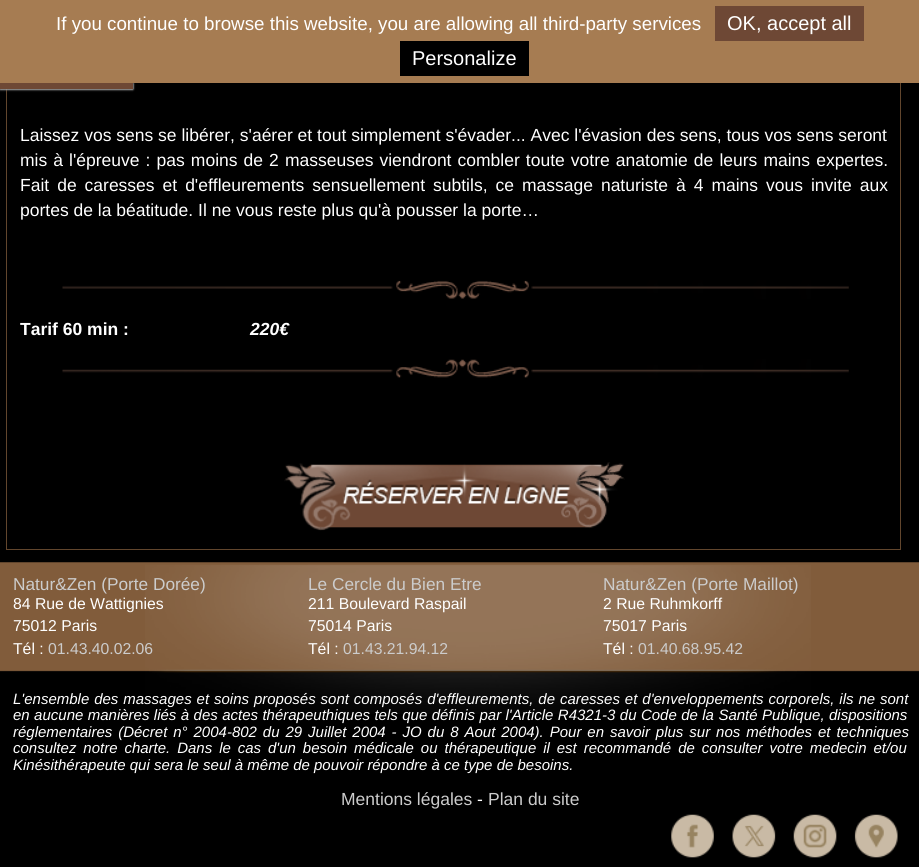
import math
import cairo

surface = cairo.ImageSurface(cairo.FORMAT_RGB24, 919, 867)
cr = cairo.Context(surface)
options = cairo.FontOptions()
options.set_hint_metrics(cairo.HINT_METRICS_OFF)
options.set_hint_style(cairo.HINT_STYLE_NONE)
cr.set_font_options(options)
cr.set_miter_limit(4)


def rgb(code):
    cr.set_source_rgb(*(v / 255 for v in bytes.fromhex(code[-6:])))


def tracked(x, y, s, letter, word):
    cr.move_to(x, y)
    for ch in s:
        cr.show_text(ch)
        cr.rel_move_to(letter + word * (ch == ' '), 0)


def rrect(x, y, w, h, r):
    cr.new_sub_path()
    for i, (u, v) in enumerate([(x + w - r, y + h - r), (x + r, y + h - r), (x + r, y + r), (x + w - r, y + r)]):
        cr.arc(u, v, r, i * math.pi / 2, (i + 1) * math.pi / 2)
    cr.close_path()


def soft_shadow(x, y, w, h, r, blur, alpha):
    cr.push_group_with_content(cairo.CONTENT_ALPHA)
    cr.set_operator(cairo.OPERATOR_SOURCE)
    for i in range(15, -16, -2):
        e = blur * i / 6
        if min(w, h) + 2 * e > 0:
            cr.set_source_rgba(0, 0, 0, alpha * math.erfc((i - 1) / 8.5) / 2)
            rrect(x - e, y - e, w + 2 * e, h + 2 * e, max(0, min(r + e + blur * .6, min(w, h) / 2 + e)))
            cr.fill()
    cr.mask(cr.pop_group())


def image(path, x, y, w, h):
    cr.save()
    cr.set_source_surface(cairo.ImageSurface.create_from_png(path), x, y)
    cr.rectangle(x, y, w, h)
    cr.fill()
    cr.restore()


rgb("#000000")
cr.paint()
cr.rectangle(6.5, 61.5, 894, 488)
rgb("#62462d")
cr.set_line_width(1)
cr.stroke()
rgb("#555555")
soft_shadow(0, 84, 133, 6, 0, 1, 1)
rgb("#ffffff")
soft_shadow(0, 83, 133, 6, 0, 1, 1)
for x, y, w, h, color in [
    (0, 0, 919, 83, "#a67c52"),
    (715, 6, 149, 35, "#6e4835"),
    (400, 41, 129, 35, "#000000"),
    (0, 83, 133, 6, "#6e4835"),
]:
    rgb(color)
    cr.rectangle(x, y, w, h)
    cr.fill()
image("img/1.png", 62, 280, 787, 19)
image("img/2.png", 62, 359, 787, 19)
image("img/3.png", 284, 462, 341, 69)
image("img/4.png", 0, 562, 919, 110)
image("img/5.png", 145, 564, 666, 150)
image("img/6.png", 149, 669, 648, 4)
image("img/7.png", 671, 814, 43, 44)
image("img/8.png", 732, 814, 44, 44)
image("img/9.png", 793, 814, 44, 44)
image("img/10.png", 854, 814, 44, 44)
cr.select_font_face("Liberation Sans")
cr.set_font_size(18.75)
rgb("#ffffff")
cr.move_to(56, 30)
cr.show_text("If you continue to browse this website, you are allowing all third-party services")
cr.set_font_size(20)
cr.move_to(727, 30)
cr.show_text("OK, accept all")
cr.move_to(412, 65)
cr.show_text("Personalize")
cr.set_font_size(17.5)
cr.move_to(20, 141)
cr.show_text("Laissez vos sens se libérer, s'aérer et tout simplement s'évader... Avec l'évasion des sens, tous vos sens seront")
tracked(20, 166, "mis à l'épreuve : pas moins de 2 masseuses viendront combler toute votre anatomie de leurs mains expertes.", 0, 1.2)
tracked(20, 191, "Fait de caresses et d'effleurements sensuellement subtils, ce massage naturiste à 4 mains vous invite aux", 0, 3.1)
cr.move_to(20, 216)
cr.show_text("portes de la béatitude. Il ne vous reste plus qu'à pousser la porte…")
cr.select_font_face("Liberation Sans", cairo.FONT_SLANT_NORMAL, cairo.FONT_WEIGHT_BOLD)
cr.move_to(20, 335)
cr.show_text("Tarif 60 min :")
cr.select_font_face("Liberation Sans", cairo.FONT_SLANT_ITALIC, cairo.FONT_WEIGHT_BOLD)
cr.move_to(250, 335)
cr.show_text("220€")
cr.select_font_face("Liberation Sans")
cr.set_font_size(17.25)
rgb("#cccccc")
cr.move_to(13, 590)
cr.show_text("Natur&Zen (Porte Dorée)")
cr.set_font_size(15.75)
rgb("#ffffff")
for x, y, s in [
    (13, 609, "84 Rue de Wattignies"),
    (13, 631, "75012 Paris"),
    (13, 654, "Tél :"),
]:
    cr.move_to(x, y)
    cr.show_text(s)
rgb("#cccccc")
cr.move_to(48, 654)
cr.show_text("01.43.40.02.06")
cr.set_font_size(17.25)
cr.move_to(308, 590)
cr.show_text("Le Cercle du Bien Etre")
cr.set_font_size(15.75)
rgb("#ffffff")
for x, y, s in [
    (308, 609, "211 Boulevard Raspail"),
    (308, 631, "75014 Paris"),
    (308, 654, "Tél :"),
]:
    cr.move_to(x, y)
    cr.show_text(s)
rgb("#cccccc")
cr.move_to(343, 654)
cr.show_text("01.43.21.94.12")
cr.set_font_size(17.25)
cr.move_to(603, 590)
cr.show_text("Natur&Zen (Porte Maillot)")
cr.set_font_size(15.75)
rgb("#ffffff")
for x, y, s in [
    (603, 609, "2 Rue Ruhmkorff"),
    (603, 631, "75017 Paris"),
    (603, 654, "Tél :"),
]:
    cr.move_to(x, y)
    cr.show_text(s)
rgb("#cccccc")
cr.move_to(638, 654)
cr.show_text("01.40.68.95.42")
cr.select_font_face("Liberation Sans", cairo.FONT_SLANT_ITALIC)
cr.set_font_size(15)
rgb("#ffffff")
tracked(13, 704, "L'ensemble des massages et soins proposés sont composés d'effleurements, de caresses et d'enveloppements corporels, ils ne sont", 0, 0.75)
tracked(13, 720, "en aucune manières liés à des actes thérapeuthiques tels que définis par l'Article R4321-3 du Code de la Santé Publique, dispositions", 0, 0.25)
tracked(13, 737, "réglementaires (Décret n° 2004-802 du 29 Juillet 2004 - JO du 8 Aout 2004). Pour en savoir plus sur nos méthodes et techniques", 0, 1.75)
tracked(13, 753, "consultez notre charte. Dans le cas d'un besoin médicale ou thérapeutique il est recommandé de consulter votre medecin et/ou", 0, 2.75)
cr.move_to(13, 770)
cr.show_text("Kinésithérapeute qui sera le seul à même de pouvoir répondre à ce type de besoins.")
cr.select_font_face("Liberation Sans")
cr.set_font_size(17.5)
rgb("#cccccc")
cr.move_to(341, 805)
cr.show_text("Mentions légales")
rgb("#ffffff")
cr.move_to(477, 805)
cr.show_text("-")
rgb("#cccccc")
cr.move_to(488, 805)
cr.show_text("Plan du site")
surface.write_to_png("page.png")
